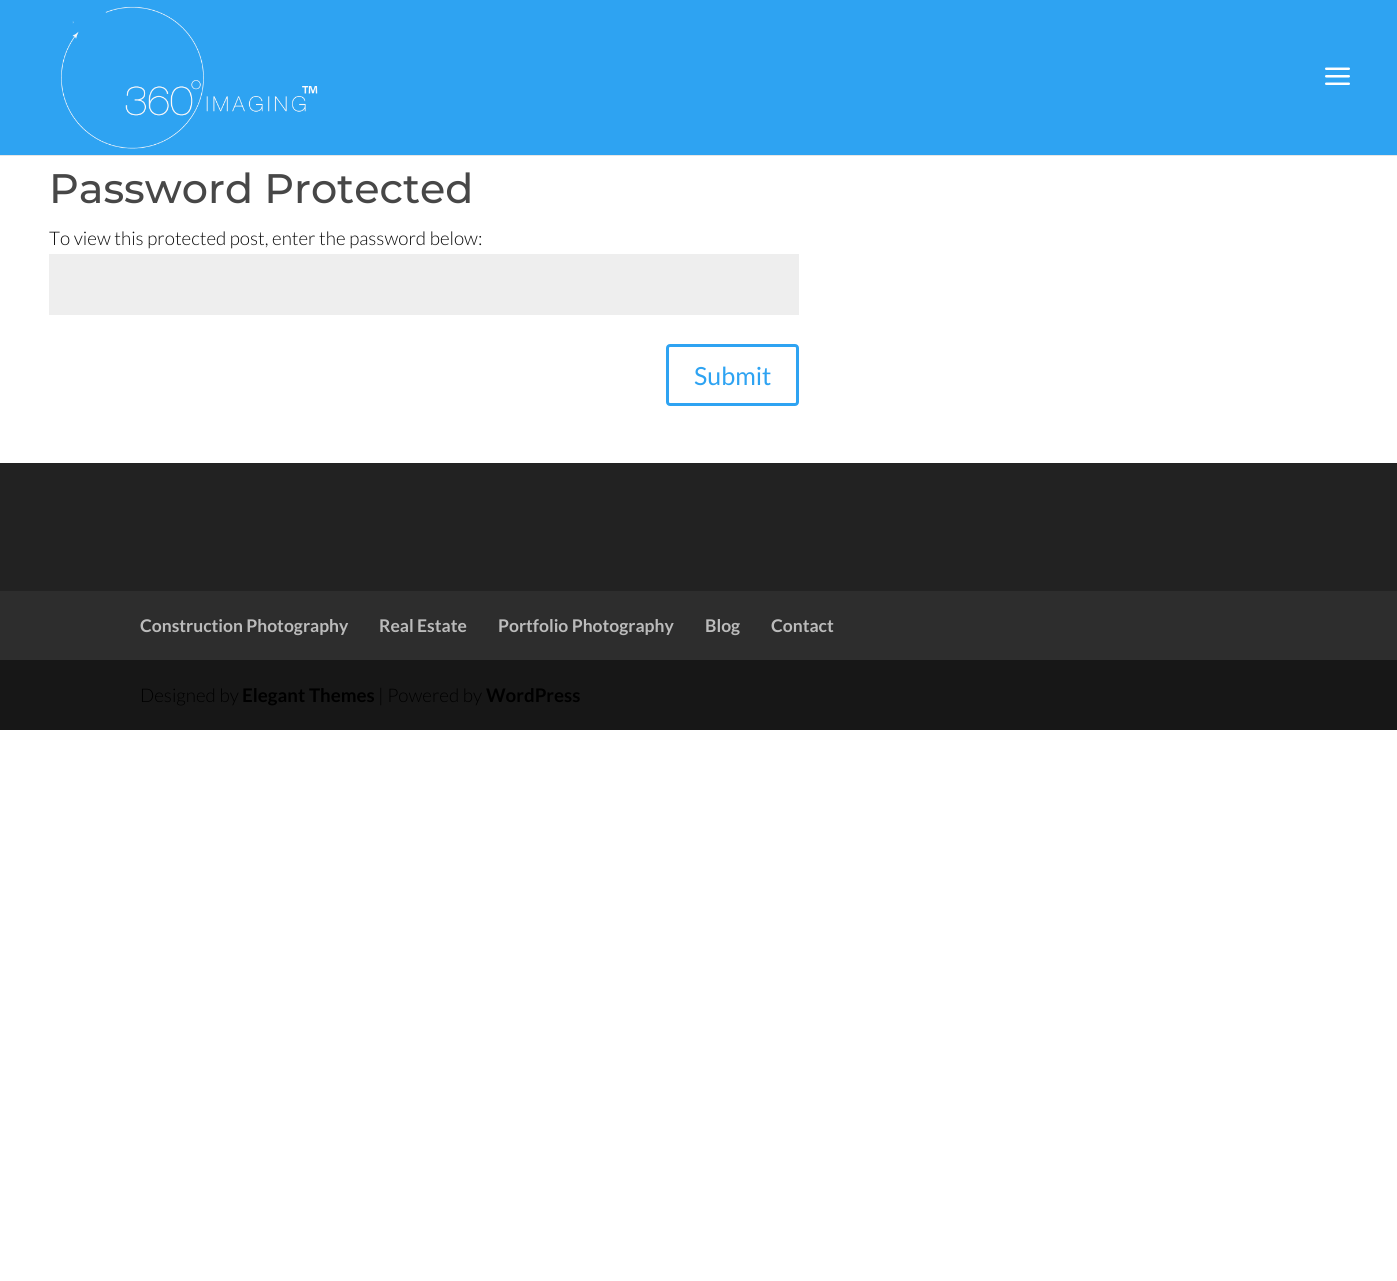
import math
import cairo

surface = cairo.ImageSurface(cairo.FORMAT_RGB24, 1397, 1281)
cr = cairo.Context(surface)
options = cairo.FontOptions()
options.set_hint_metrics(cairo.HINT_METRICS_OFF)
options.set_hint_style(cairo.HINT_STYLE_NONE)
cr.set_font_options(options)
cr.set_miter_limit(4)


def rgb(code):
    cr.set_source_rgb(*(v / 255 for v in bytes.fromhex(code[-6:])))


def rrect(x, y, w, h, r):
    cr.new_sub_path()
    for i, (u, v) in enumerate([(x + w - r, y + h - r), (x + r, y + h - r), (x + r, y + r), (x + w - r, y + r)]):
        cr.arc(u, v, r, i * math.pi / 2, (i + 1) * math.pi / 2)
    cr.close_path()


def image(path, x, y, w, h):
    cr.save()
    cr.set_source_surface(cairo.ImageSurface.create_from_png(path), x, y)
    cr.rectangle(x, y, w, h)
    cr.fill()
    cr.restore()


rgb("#ffffff")
cr.paint()
rgb("#e6e6e6")
cr.new_path()
cr.move_to(0, 155)
cr.line_to(0, 156)
cr.line_to(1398, 156)
cr.line_to(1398, 1)
cr.line_to(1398, 155)
cr.close_path()
cr.fill()
rgb("#2ea3f2")
cr.rectangle(0, 0, 1397, 155)
cr.fill()
image("img/1.png", 61, 6, 257, 143)
image("img/2.png", 1325, 67, 25, 18)
rgb("#eeeeee")
cr.rectangle(49, 254, 750, 61)
cr.fill()
rrect(667.5, 345.5, 130, 59, 2.5)
rgb("#2ea3f2")
cr.set_line_width(3)
cr.stroke()
for x, y, w, h, color in [
    (0, 463, 1397, 128, "#222222"),
    (0, 591, 1397, 69, "#2d2d2d"),
    (0, 660, 1397, 70, "#171717"),
]:
    rgb(color)
    cr.rectangle(x, y, w, h)
    cr.fill()
cr.select_font_face("Montserrat Medium")
cr.set_font_size(41.25)
rgb("#474747")
cr.move_to(49, 203)
cr.show_text("Password Protected")
cr.select_font_face("Lato Light")
cr.set_font_size(18.75)
rgb("#0a0a0a")
cr.move_to(49, 245)
cr.show_text("To view this protected post, enter the password below:")
cr.select_font_face("Lato")
cr.set_font_size(25)
rgb("#2ea3f2")
cr.move_to(694, 385)
cr.show_text("Submit")
cr.select_font_face("Lato", cairo.FONT_SLANT_NORMAL, cairo.FONT_WEIGHT_BOLD)
cr.set_font_size(17.5)
rgb("#bbbbbb")
for x, y, s in [
    (140, 632, "Construction Photography"),
    (379, 632, "Real Estate"),
    (498, 632, "Portfolio Photography"),
    (705, 632, "Blog"),
    (771, 632, "Contact"),
]:
    cr.move_to(x, y)
    cr.show_text(s)
cr.select_font_face("Lato Light")
cr.set_font_size(18.75)
rgb("#000000")
cr.move_to(140, 702)
cr.show_text("Designed by")
cr.select_font_face("Lato", cairo.FONT_SLANT_NORMAL, cairo.FONT_WEIGHT_BOLD)
cr.move_to(242, 702)
cr.show_text("Elegant Themes")
cr.select_font_face("Lato Light")
cr.move_to(378, 702)
cr.show_text("| Powered by")
cr.select_font_face("Lato", cairo.FONT_SLANT_NORMAL, cairo.FONT_WEIGHT_BOLD)
cr.move_to(486, 702)
cr.show_text("WordPress")
surface.write_to_png("page.png")
